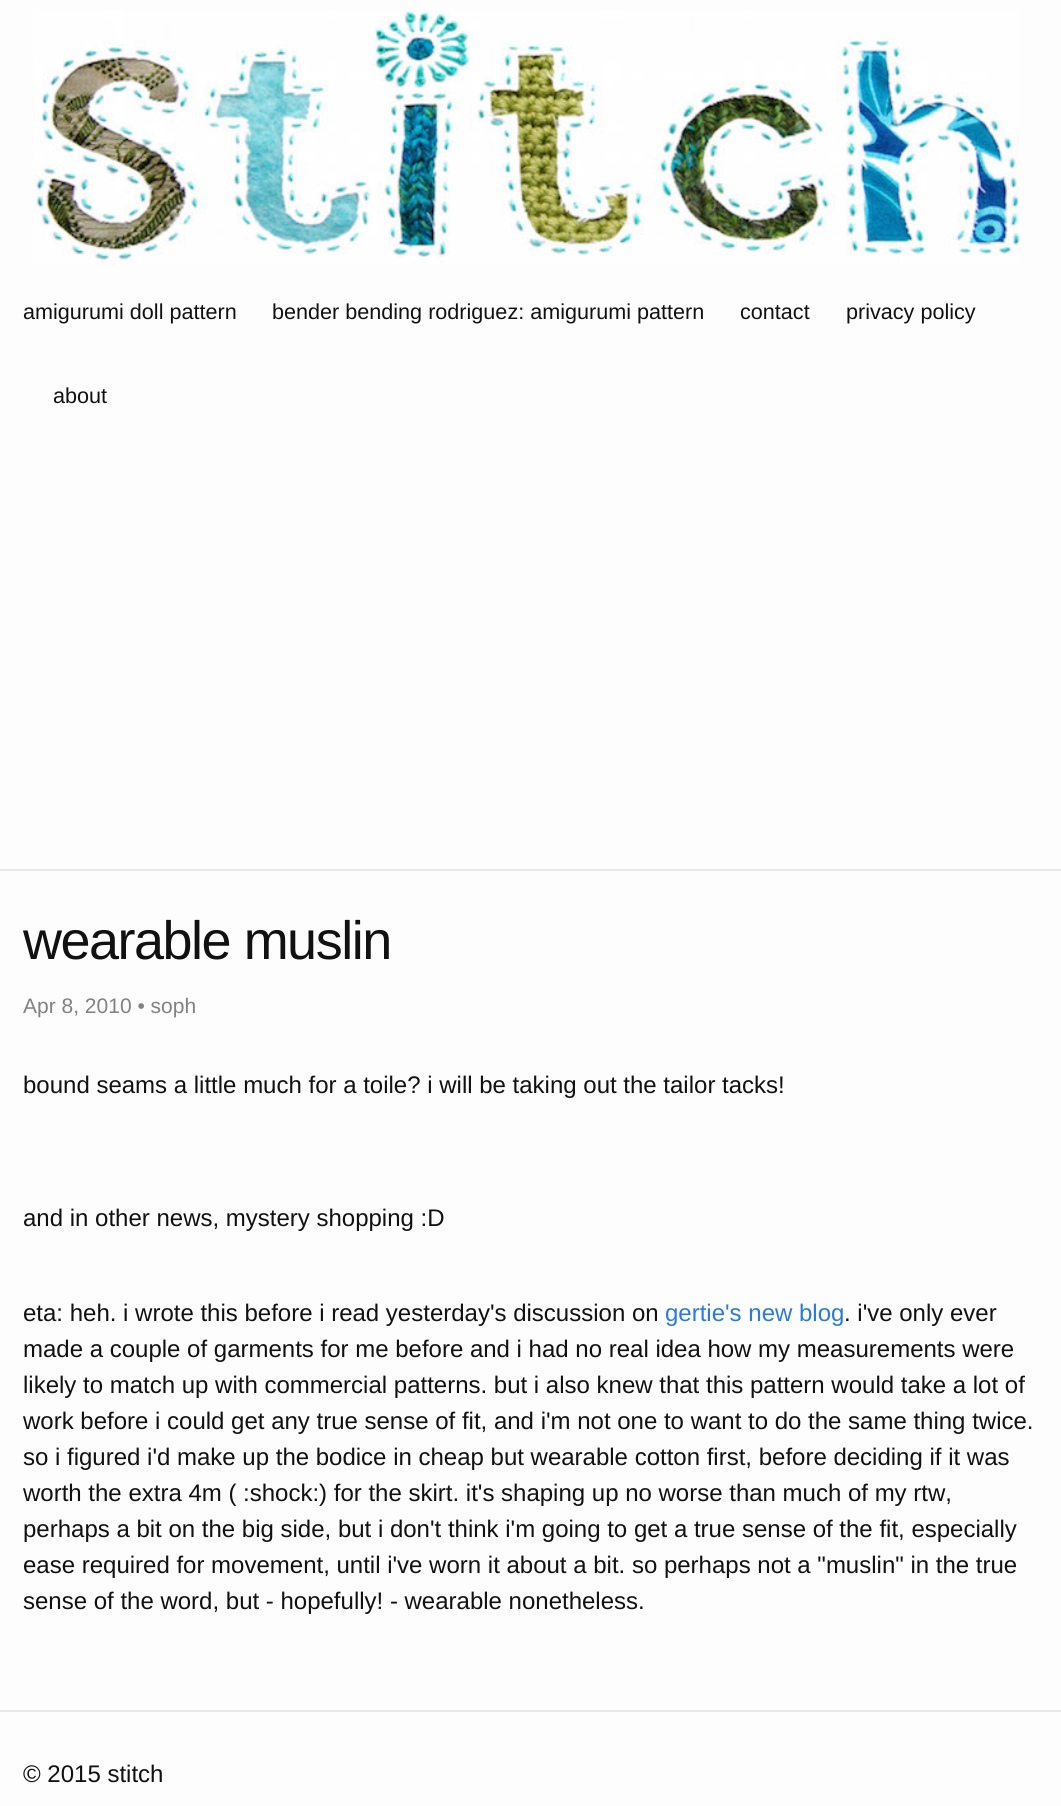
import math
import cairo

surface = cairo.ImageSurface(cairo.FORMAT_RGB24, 1061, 1806)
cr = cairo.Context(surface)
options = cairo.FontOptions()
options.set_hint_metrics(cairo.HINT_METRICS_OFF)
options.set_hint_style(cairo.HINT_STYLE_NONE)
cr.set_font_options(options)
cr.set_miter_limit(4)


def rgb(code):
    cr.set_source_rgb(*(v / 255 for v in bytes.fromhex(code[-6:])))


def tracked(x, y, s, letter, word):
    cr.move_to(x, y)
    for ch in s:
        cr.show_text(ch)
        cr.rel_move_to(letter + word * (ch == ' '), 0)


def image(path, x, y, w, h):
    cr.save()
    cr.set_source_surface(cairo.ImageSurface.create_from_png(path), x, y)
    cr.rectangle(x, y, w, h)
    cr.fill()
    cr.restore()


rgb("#fdfdfd")
cr.paint()
rgb("#e8e8e8")
cr.rectangle(0, 869, 1061, 2)
cr.fill()
image("img/1.png", 33, 10, 987, 255)
cr.rectangle(0, 1710, 1061, 2)
cr.fill()
cr.select_font_face("Liberation Sans")
cr.set_font_size(21.6)
rgb("#111111")
for x, y, s in [
    (23, 319, "amigurumi doll pattern"),
    (272, 319, "bender bending rodriguez: amigurumi pattern"),
    (740, 319, "contact"),
    (846, 319, "privacy policy"),
    (53, 403, "about"),
]:
    cr.move_to(x, y)
    cr.show_text(s)
cr.set_font_size(54)
tracked(23, 959, "wearable muslin", -1.5, 0)
cr.set_font_size(21)
rgb("#828282")
cr.move_to(23, 1013)
cr.show_text("Apr 8, 2010 • soph")
cr.set_font_size(24)
rgb("#111111")
for x, y, s in [
    (23, 1093, "bound seams a little much for a toile? i will be taking out the tailor tacks!"),
    (23, 1226, "and in other news, mystery shopping :D"),
    (23, 1321, "eta: heh. i wrote this before i read yesterday's discussion on"),
]:
    cr.move_to(x, y)
    cr.show_text(s)
rgb("#2a7ae2")
cr.move_to(665, 1321)
cr.show_text("gertie's new blog")
rgb("#111111")
for x, y, s in [
    (844, 1321, ". i've only ever"),
    (23, 1357, "made a couple of garments for me before and i had no real idea how my measurements were"),
    (23, 1393, "likely to match up with commercial patterns. but i also knew that this pattern would take a lot of"),
    (23, 1429, "work before i could get any true sense of fit, and i'm not one to want to do the same thing twice."),
    (23, 1465, "so i figured i'd make up the bodice in cheap but wearable cotton first, before deciding if it was"),
    (23, 1501, "worth the extra 4m ( :shock:) for the skirt. it's shaping up no worse than much of my rtw,"),
    (23, 1537, "perhaps a bit on the big side, but i don't think i'm going to get a true sense of the fit, especially"),
    (23, 1573, "ease required for movement, until i've worn it about a bit. so perhaps not a \"muslin\" in the true"),
    (23, 1609, "sense of the word, but - hopefully! - wearable nonetheless."),
    (23, 1782, "© 2015 stitch"),
]:
    cr.move_to(x, y)
    cr.show_text(s)
surface.write_to_png("page.png")
